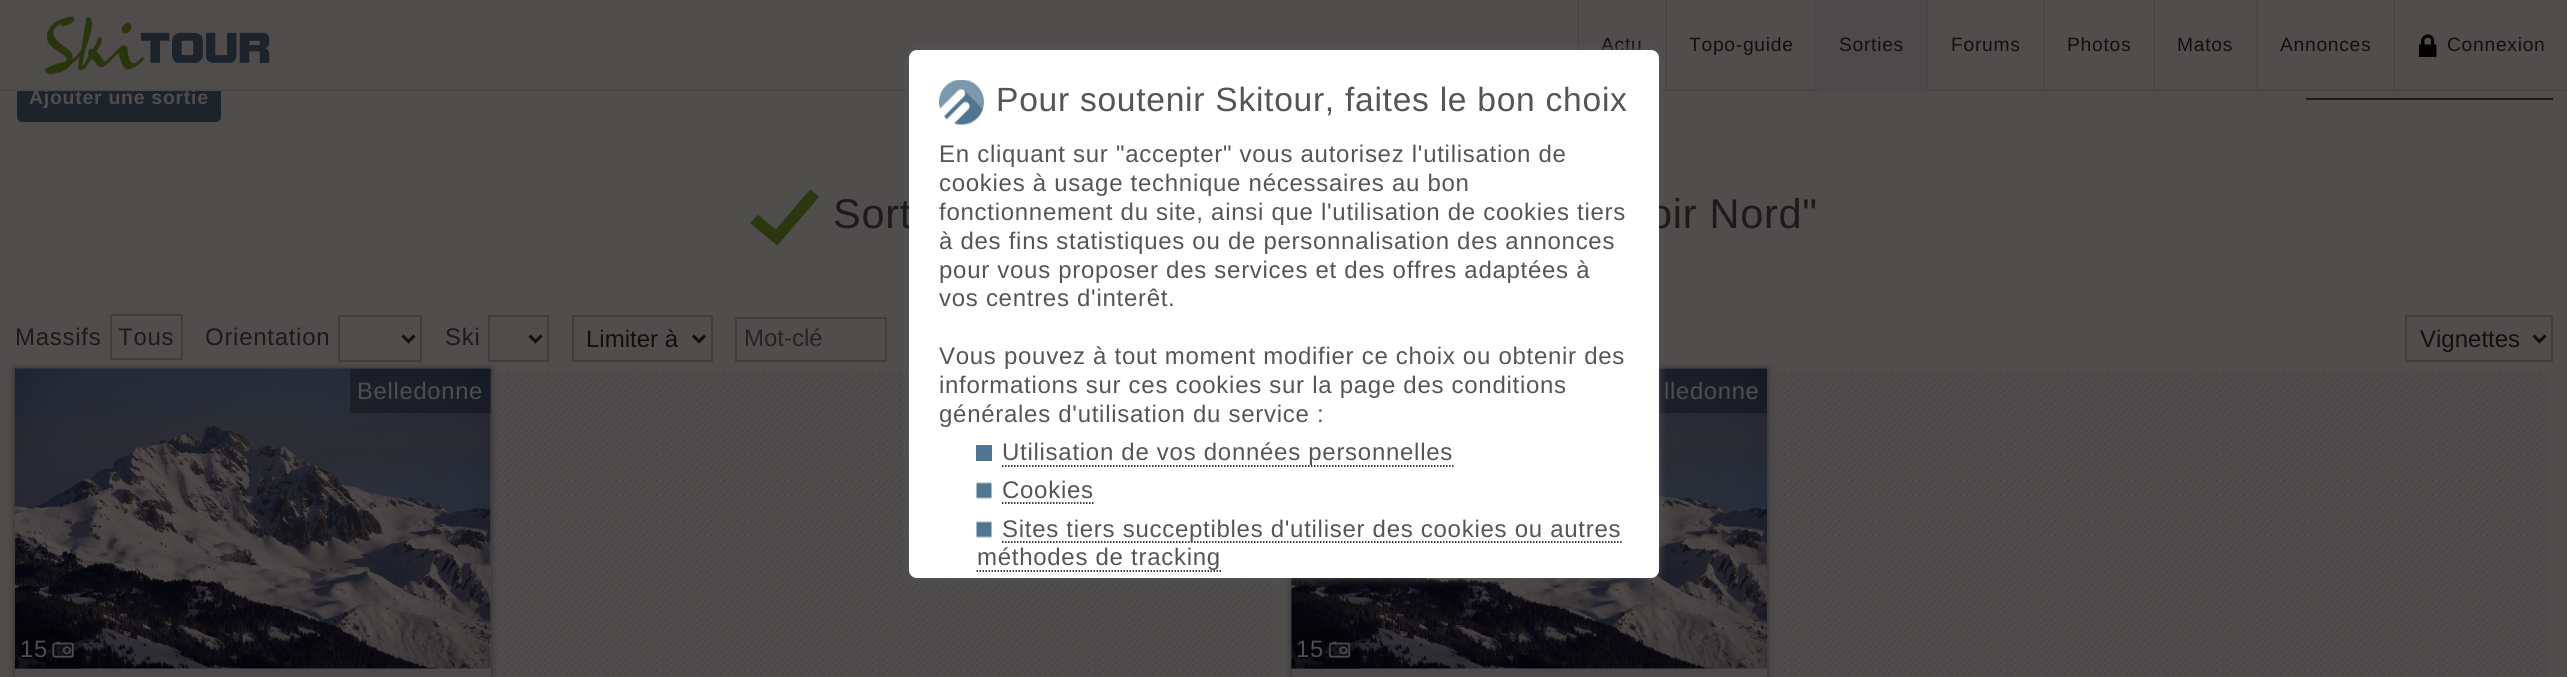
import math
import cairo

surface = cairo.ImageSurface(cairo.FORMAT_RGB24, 2567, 677)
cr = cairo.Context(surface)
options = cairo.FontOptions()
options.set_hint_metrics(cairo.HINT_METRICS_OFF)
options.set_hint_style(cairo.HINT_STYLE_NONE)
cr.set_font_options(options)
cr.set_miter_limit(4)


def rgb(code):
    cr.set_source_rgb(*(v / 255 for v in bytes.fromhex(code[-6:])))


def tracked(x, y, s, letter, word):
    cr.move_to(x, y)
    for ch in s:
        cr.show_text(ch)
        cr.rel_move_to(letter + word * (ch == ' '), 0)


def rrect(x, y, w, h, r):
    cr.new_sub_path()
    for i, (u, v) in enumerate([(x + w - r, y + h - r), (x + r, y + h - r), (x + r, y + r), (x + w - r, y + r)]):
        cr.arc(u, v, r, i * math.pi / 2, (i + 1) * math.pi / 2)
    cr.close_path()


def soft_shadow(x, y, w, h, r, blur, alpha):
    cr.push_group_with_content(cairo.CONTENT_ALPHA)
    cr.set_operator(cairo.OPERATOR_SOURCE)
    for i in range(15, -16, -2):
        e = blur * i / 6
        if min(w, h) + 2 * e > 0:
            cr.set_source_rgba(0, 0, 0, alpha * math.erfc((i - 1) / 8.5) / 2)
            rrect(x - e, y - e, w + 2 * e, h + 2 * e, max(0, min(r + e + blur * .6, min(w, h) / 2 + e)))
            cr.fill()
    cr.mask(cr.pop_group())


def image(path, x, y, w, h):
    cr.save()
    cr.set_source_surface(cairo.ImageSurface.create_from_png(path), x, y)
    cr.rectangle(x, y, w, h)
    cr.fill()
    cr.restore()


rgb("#504d4d")
cr.paint()
rgb("#1c232b")
rrect(17, 74, 204, 48, 5)
cr.fill()
rgb("#504d4d")
cr.rectangle(17, 74, 204, 15)
cr.fill()
image("img/1.png", 45, 16, 225, 59)
rgb("#4b4747")
cr.rectangle(1577, 0, 2, 50)
cr.fill()
image("img/2.png", 2418, 34, 19, 23)
rgb("#1d1a1a")
cr.rectangle(2306, 98, 247, 2)
cr.fill()
image("img/5.png", 750, 189, 69, 57)
cr.rectangle(111, 315, 71, 44)
rgb("#413d3d")
cr.stroke()
cr.rectangle(339, 316, 82, 45)
cr.stroke()
cr.new_path()
cr.move_to(402.5, 335.5)
cr.line_to(408.5, 341.5)
cr.line_to(414.5, 335.5)
rgb("#130f0f")
cr.set_line_width(3)
cr.stroke()
cr.rectangle(489, 316, 59, 45)
rgb("#413d3d")
cr.set_line_width(2)
cr.stroke()
cr.new_path()
cr.move_to(529.5, 335.5)
cr.line_to(535.5, 341.5)
cr.line_to(541.5, 335.5)
rgb("#130f0f")
cr.set_line_width(3)
cr.stroke()
cr.rectangle(573, 316, 139, 45)
rgb("#413d3d")
cr.set_line_width(2)
cr.stroke()
cr.new_path()
cr.move_to(693, 335.5)
cr.line_to(699, 341.5)
cr.line_to(705, 335.5)
rgb("#130f0f")
cr.set_line_width(3)
cr.stroke()
cr.rectangle(736, 318, 150, 43)
rgb("#413d3d")
cr.set_line_width(2)
cr.stroke()
cr.rectangle(2406, 316, 146, 45)
cr.stroke()
cr.new_path()
cr.move_to(2533.5, 335.5)
cr.line_to(2539.5, 341.5)
cr.line_to(2545.5, 335.5)
rgb("#130f0f")
cr.set_line_width(3)
cr.stroke()
image("img/8.png", 495, 373, 777, 304)
rgb("#2c2929")
soft_shadow(15, 369, 476, 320, 0, 4, 1)
rgb("#4d4a4b")
cr.rectangle(15, 369, 476, 308)
cr.fill()
image("img/6.png", 15, 368, 476, 301)
cr.set_source_rgba(0.016, 0, 0, 0.3)
cr.rectangle(350, 369, 141, 44)
cr.fill()
cr.rectangle(15, 630, 68, 39)
cr.fill()
image("img/7.png", 52, 641, 22, 17)
image("img/11.png", 1771, 373, 777, 304)
rgb("#2c2929")
soft_shadow(1292, 369, 475, 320, 0, 4, 1)
rgb("#4d4a4b")
cr.rectangle(1292, 668, 475, 9)
cr.fill()
image("img/9.png", 1291, 368, 476, 301)
cr.set_source_rgba(0.016, 0, 0, 0.3)
cr.rectangle(1659, 369, 108, 44)
cr.fill()
cr.rectangle(1292, 630, 67, 39)
cr.fill()
image("img/10.png", 1328, 641, 23, 17)
cr.select_font_face("Liberation Sans")
cr.set_font_size(19.25)
rgb("#130f0f")
for x, y, s in [
    (1601, 51, "Actu"),
    (1689, 51, "Topo-guide"),
    (1951, 51, "Forums"),
    (2067, 51, "Photos"),
    (2177, 51, "Matos"),
    (2280, 51, "Annonces"),
    (2447, 51, "Connexion"),
]:
    tracked(x, y, s, 0.72, 0)
cr.select_font_face("Liberation Sans", cairo.FONT_SLANT_NORMAL, cairo.FONT_WEIGHT_BOLD)
cr.set_font_size(19.5)
rgb("#504d4d")
tracked(29, 104, "Ajouter une sortie", 0.72, 0)
rgb("#4b4747")
cr.rectangle(0, 89, 2567, 2)
cr.fill()
cr.rectangle(1665, 0, 2, 90)
cr.fill()
rgb("#555555")
soft_shadow(909, 50, 750, 528, 8, 4, 1)
for x, y, w, h, color in [
    (2393, 0, 2, 90, "#4b4747"),
    (2256, 0, 2, 90, "#4b4747"),
    (2153, 0, 2, 90, "#4b4747"),
    (2043, 0, 2, 90, "#4b4747"),
    (1926, 0, 2, 90, "#4b4747"),
    (1817, 0, 109, 90, "#4d4a4b"),
]:
    rgb(color)
    cr.rectangle(x, y, w, h)
    cr.fill()
cr.select_font_face("Liberation Sans")
cr.set_font_size(19.25)
rgb("#130f0f")
tracked(1839, 51, "Sorties", 0.72, 0)
rgb("#4b4747")
cr.rectangle(1815, 0, 2, 90)
cr.fill()
cr.set_font_size(41.5)
rgb("#1d1a1a")
tracked(833, 228, "Sort", 0.72, 0)
tracked(1649, 228, "oir Nord\"", 0.72, 0)
rgb("#ffffff")
rrect(909, 50, 750, 528, 8)
cr.fill()
cr.set_font_size(24)
rgb("#555555")
tracked(977, 565, "méthodes de tracking", 0.72, 0)
cr.new_path()
cr.move_to(1002, 542)
cr.line_to(1621.5, 542)
rgb("#000000")
cr.set_line_width(1.5)
cr.set_dash([1.5, 1.5])
cr.stroke()
rgb("#555555")
tracked(1002, 537, "Sites tiers succeptibles d'utiliser des cookies ou autres", 0.72, 0)
cr.new_path()
cr.move_to(976.5, 571)
cr.line_to(1221, 571)
rgb("#000000")
cr.stroke()
rgb("#555555")
tracked(1002, 498, "Cookies", 0.72, 0)
cr.new_path()
cr.move_to(1002, 503)
cr.line_to(1093.5, 503)
rgb("#000000")
cr.stroke()
rgb("#555555")
tracked(1002, 460, "Utilisation de vos données personnelles", 0.72, 0)
cr.new_path()
cr.move_to(1002, 466)
cr.line_to(1453.5, 466)
rgb("#000000")
cr.stroke()
rgb("#555555")
for x, y, s in [
    (939, 422, "générales d'utilisation du service :"),
    (939, 393, "informations sur ces cookies sur la page des conditions"),
    (939, 364, "Vous pouvez à tout moment modifier ce choix ou obtenir des"),
    (939, 306, "vos centres d'interêt."),
    (939, 278, "pour vous proposer des services et des offres adaptées à"),
    (939, 249, "à des fins statistiques ou de personnalisation des annonces"),
    (939, 220, "fonctionnement du site, ainsi que l'utilisation de cookies tiers"),
    (939, 191, "cookies à usage technique nécessaires au bon"),
    (939, 162, "En cliquant sur \"accepter\" vous autorisez l'utilisation de"),
]:
    tracked(x, y, s, 0.72, 0)
cr.set_font_size(33.6)
tracked(996, 111, "Pour soutenir Skitour, faites le bon choix", 0.72, 0)
image("img/3.png", 939, 80, 45, 45)
image("img/4.png", 976, 521, 16, 17)
image("img/4.png", 976, 482, 16, 17)
rgb("#507590")
cr.rectangle(976, 445, 16, 16)
cr.fill()
cr.set_font_size(24)
rgb("#1d1a1a")
for x, y, s in [
    (15, 345, "Massifs"),
    (118, 345, "Tous"),
    (205, 345, "Orientation"),
    (445, 345, "Ski"),
]:
    tracked(x, y, s, 0.72, 0)
rgb("#130f0f")
cr.move_to(586, 347)
cr.show_text("Limiter à")
rgb("#272323")
cr.move_to(744, 346)
cr.show_text("Mot-clé")
rgb("#130f0f")
cr.move_to(2420, 347)
cr.show_text("Vignettes")
cr.set_font_size(23.75)
rgb("#504d4d")
for x, y, s in [
    (357, 399, "Belledonne"),
    (20, 657, "15"),
    (1664, 399, "lledonne"),
    (1296, 657, "15"),
]:
    tracked(x, y, s, 0.72, 0)
surface.write_to_png("page.png")
